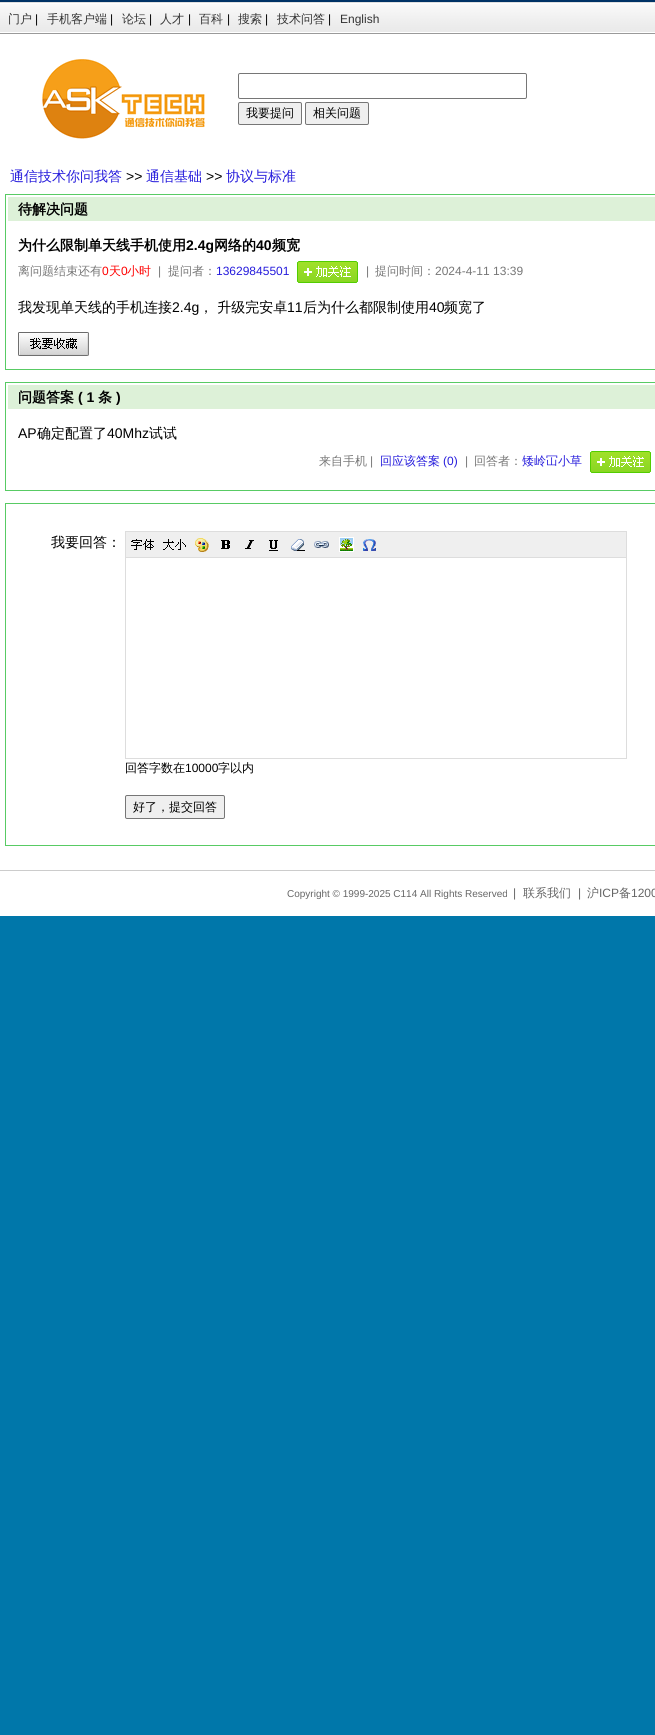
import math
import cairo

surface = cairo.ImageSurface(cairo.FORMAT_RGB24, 655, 1735)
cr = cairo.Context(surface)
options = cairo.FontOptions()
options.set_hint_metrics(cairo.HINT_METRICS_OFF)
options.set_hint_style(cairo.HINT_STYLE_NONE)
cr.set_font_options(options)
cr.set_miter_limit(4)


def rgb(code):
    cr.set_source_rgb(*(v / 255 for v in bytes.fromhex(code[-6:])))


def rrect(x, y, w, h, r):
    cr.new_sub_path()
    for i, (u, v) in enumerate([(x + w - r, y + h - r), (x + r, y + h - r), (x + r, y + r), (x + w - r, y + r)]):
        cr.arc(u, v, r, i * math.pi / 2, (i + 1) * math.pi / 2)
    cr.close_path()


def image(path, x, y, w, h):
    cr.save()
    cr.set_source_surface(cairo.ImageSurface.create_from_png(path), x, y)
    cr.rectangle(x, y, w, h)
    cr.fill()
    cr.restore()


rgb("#0077aa")
cr.paint()
image("img/1.png", 0, 0, 655, 2)
rgb("#ffffff")
cr.rectangle(0, 34, 655, 882)
cr.fill()
image("img/2.png", 0, 2, 655, 32)
image("img/3.png", 42, 59, 163, 80)
rrect(238.5, 73.5, 288, 25, 1.5)
rgb("#767676")
cr.set_line_width(1)
cr.stroke()
rgb("#efefef")
rrect(238.5, 102.5, 63, 22, 1.5)
cr.fill_preserve()
rgb("#767676")
cr.stroke()
rgb("#efefef")
rrect(305.5, 102.5, 63, 22, 1.5)
cr.fill_preserve()
rgb("#767676")
cr.stroke()
for x, y, w, h, color in [
    (5, 194, 650, 1, "#58cb64"),
    (5, 194, 1, 27, "#58cb64"),
    (8, 197, 647, 24, "#ddf1d8"),
    (5, 369, 650, 1, "#58cb64"),
    (5, 221, 1, 149, "#58cb64"),
]:
    rgb(color)
    cr.rectangle(x, y, w, h)
    cr.fill()
image("img/4.png", 297, 261, 61, 22)
image("img/5.png", 18, 332, 71, 24)
for x, y, w, h, color in [
    (5, 382, 650, 1, "#58cb64"),
    (5, 382, 1, 27, "#58cb64"),
    (8, 385, 647, 24, "#ddf1d8"),
    (5, 490, 650, 1, "#58cb64"),
    (5, 409, 1, 82, "#58cb64"),
]:
    rgb(color)
    cr.rectangle(x, y, w, h)
    cr.fill()
image("img/4.png", 590, 451, 61, 22)
cr.rectangle(5.5, 503.5, 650, 342)
cr.stroke()
rgb("#efefef")
cr.rectangle(125.5, 531.5, 501, 26)
cr.fill_preserve()
rgb("#dddddd")
cr.stroke()
image("img/6.png", 131, 539, 23, 11)
image("img/7.png", 163, 539, 23, 11)
image("img/8.png", 195, 538, 14, 14)
image("img/9.png", 221, 540, 9, 9)
image("img/10.png", 245, 540, 9, 9)
image("img/11.png", 269, 540, 9, 11)
image("img/12.png", 291, 539, 14, 12)
image("img/13.png", 314, 541, 15, 7)
image("img/14.png", 339, 537, 15, 15)
image("img/15.png", 363, 539, 13, 12)
for x, y, w, h, color in [
    (626, 558, 1, 201, "#dddddd"),
    (125, 758, 502, 1, "#dddddd"),
    (125, 558, 1, 201, "#dddddd"),
]:
    rgb(color)
    cr.rectangle(x, y, w, h)
    cr.fill()
rgb("#efefef")
rrect(125.5, 795.5, 99, 23, 1.5)
cr.fill_preserve()
rgb("#767676")
cr.stroke()
rgb("#cccccc")
cr.rectangle(0, 870, 655, 1)
cr.fill()
cr.select_font_face("WenQuanYi Zen Hei Medium")
cr.set_font_size(12)
rgb("#333333")
cr.move_to(8, 23)
cr.show_text("门户")
cr.select_font_face("Liberation Sans")
rgb("#000000")
cr.move_to(35, 23)
cr.show_text("|")
cr.select_font_face("WenQuanYi Zen Hei Medium")
rgb("#333333")
cr.move_to(47, 23)
cr.show_text("手机客户端")
cr.select_font_face("Liberation Sans")
rgb("#000000")
cr.move_to(110, 23)
cr.show_text("|")
cr.select_font_face("WenQuanYi Zen Hei Medium")
rgb("#333333")
cr.move_to(122, 23)
cr.show_text("论坛")
cr.select_font_face("Liberation Sans")
rgb("#000000")
cr.move_to(149, 23)
cr.show_text("|")
cr.select_font_face("WenQuanYi Zen Hei Medium")
rgb("#333333")
cr.move_to(160, 23)
cr.show_text("人才")
cr.select_font_face("Liberation Sans")
rgb("#000000")
cr.move_to(188, 23)
cr.show_text("|")
cr.select_font_face("WenQuanYi Zen Hei Medium")
rgb("#333333")
cr.move_to(199, 23)
cr.show_text("百科")
cr.select_font_face("Liberation Sans")
rgb("#000000")
cr.move_to(227, 23)
cr.show_text("|")
cr.select_font_face("WenQuanYi Zen Hei Medium")
rgb("#333333")
cr.move_to(238, 23)
cr.show_text("搜索")
cr.select_font_face("Liberation Sans")
rgb("#000000")
cr.move_to(265, 23)
cr.show_text("|")
cr.select_font_face("WenQuanYi Zen Hei Medium")
rgb("#333333")
cr.move_to(277, 23)
cr.show_text("技术问答")
cr.select_font_face("Liberation Sans")
rgb("#000000")
cr.move_to(328, 23)
cr.show_text("|")
rgb("#333333")
cr.move_to(340, 23)
cr.show_text("English")
cr.select_font_face("WenQuanYi Zen Hei Medium")
rgb("#000000")
cr.move_to(246, 117)
cr.show_text("我要提问")
cr.move_to(313, 117)
cr.show_text("相关问题")
cr.set_font_size(14)
rgb("#261cdc")
cr.move_to(10, 181)
cr.show_text("通信技术你问我答")
cr.select_font_face("Liberation Sans")
rgb("#000000")
cr.move_to(126, 181)
cr.show_text(">>")
cr.select_font_face("WenQuanYi Zen Hei Medium")
rgb("#261cdc")
cr.move_to(146, 181)
cr.show_text("通信基础")
cr.select_font_face("Liberation Sans")
rgb("#000000")
cr.move_to(206, 181)
cr.show_text(">>")
cr.select_font_face("WenQuanYi Zen Hei Medium")
rgb("#261cdc")
cr.move_to(226, 181)
cr.show_text("协议与标准")
cr.select_font_face("WenQuanYi Zen Hei", cairo.FONT_SLANT_NORMAL, cairo.FONT_WEIGHT_BOLD)
rgb("#000000")
cr.move_to(18, 214)
cr.show_text("待解决问题")
cr.move_to(18, 250)
cr.show_text("为什么限制单天线手机使用")
cr.select_font_face("Liberation Sans", cairo.FONT_SLANT_NORMAL, cairo.FONT_WEIGHT_BOLD)
cr.move_to(186, 250)
cr.show_text("2.4g")
cr.select_font_face("WenQuanYi Zen Hei", cairo.FONT_SLANT_NORMAL, cairo.FONT_WEIGHT_BOLD)
cr.move_to(214, 250)
cr.show_text("网络的")
cr.select_font_face("Liberation Sans", cairo.FONT_SLANT_NORMAL, cairo.FONT_WEIGHT_BOLD)
cr.move_to(256, 250)
cr.show_text("40")
cr.select_font_face("WenQuanYi Zen Hei", cairo.FONT_SLANT_NORMAL, cairo.FONT_WEIGHT_BOLD)
cr.move_to(272, 250)
cr.show_text("频宽")
cr.select_font_face("WenQuanYi Zen Hei Medium")
cr.set_font_size(12)
rgb("#777777")
cr.move_to(18, 275)
cr.show_text("离问题结束还有")
cr.select_font_face("Liberation Sans")
rgb("#ff0000")
cr.move_to(102, 275)
cr.show_text("0")
cr.select_font_face("WenQuanYi Zen Hei Medium")
cr.move_to(109, 275)
cr.show_text("天")
cr.select_font_face("Liberation Sans")
cr.move_to(121, 275)
cr.show_text("0")
cr.select_font_face("WenQuanYi Zen Hei Medium")
cr.move_to(127, 275)
cr.show_text("小时")
cr.select_font_face("Liberation Sans")
rgb("#777777")
cr.move_to(158, 275)
cr.show_text("|")
cr.select_font_face("WenQuanYi Zen Hei Medium")
cr.move_to(168, 275)
cr.show_text("提问者：")
cr.select_font_face("Liberation Sans")
rgb("#261cdc")
cr.move_to(216, 275)
cr.show_text("13629845501")
rgb("#777777")
cr.move_to(366, 275)
cr.show_text("|")
cr.select_font_face("WenQuanYi Zen Hei Medium")
cr.move_to(375, 275)
cr.show_text("提问时间：")
cr.select_font_face("Liberation Sans")
cr.move_to(435, 275)
cr.show_text("2024-4-11 13:39")
cr.select_font_face("WenQuanYi Zen Hei Medium")
cr.set_font_size(14)
rgb("#000000")
cr.move_to(18, 312)
cr.show_text("我发现单天线的手机连接")
cr.select_font_face("Liberation Sans")
cr.move_to(172, 312)
cr.show_text("2.4g")
cr.select_font_face("WenQuanYi Zen Hei Medium")
cr.move_to(199, 312)
cr.show_text("， 升级完安卓")
cr.select_font_face("Liberation Sans")
cr.move_to(287, 312)
cr.show_text("11")
cr.select_font_face("WenQuanYi Zen Hei Medium")
cr.move_to(303, 312)
cr.show_text("后为什么都限制使用")
cr.select_font_face("Liberation Sans")
cr.move_to(429, 312)
cr.show_text("40")
cr.select_font_face("WenQuanYi Zen Hei Medium")
cr.move_to(444, 312)
cr.show_text("频宽了")
cr.select_font_face("WenQuanYi Zen Hei", cairo.FONT_SLANT_NORMAL, cairo.FONT_WEIGHT_BOLD)
cr.move_to(18, 402)
cr.show_text("问题答案")
cr.select_font_face("Liberation Sans", cairo.FONT_SLANT_NORMAL, cairo.FONT_WEIGHT_BOLD)
cr.move_to(78, 402)
cr.show_text("( 1")
cr.select_font_face("WenQuanYi Zen Hei", cairo.FONT_SLANT_NORMAL, cairo.FONT_WEIGHT_BOLD)
cr.move_to(98, 402)
cr.show_text("条")
cr.select_font_face("Liberation Sans", cairo.FONT_SLANT_NORMAL, cairo.FONT_WEIGHT_BOLD)
cr.move_to(116, 402)
cr.show_text(")")
cr.select_font_face("Liberation Sans")
cr.move_to(18, 438)
cr.show_text("AP")
cr.select_font_face("WenQuanYi Zen Hei Medium")
cr.move_to(37, 438)
cr.show_text("确定配置了")
cr.select_font_face("Liberation Sans")
cr.move_to(107, 438)
cr.show_text("40Mhz")
cr.select_font_face("WenQuanYi Zen Hei Medium")
cr.move_to(149, 438)
cr.show_text("试试")
cr.set_font_size(12)
rgb("#777777")
cr.move_to(319, 465)
cr.show_text("来自手机")
cr.select_font_face("Liberation Sans")
cr.move_to(370, 465)
cr.show_text("|")
cr.select_font_face("WenQuanYi Zen Hei Medium")
rgb("#261cdc")
cr.move_to(380, 465)
cr.show_text("回应该答案")
cr.select_font_face("Liberation Sans")
cr.move_to(443, 465)
cr.show_text("(0)")
rgb("#777777")
cr.move_to(465, 465)
cr.show_text("|")
cr.select_font_face("WenQuanYi Zen Hei Medium")
cr.move_to(474, 465)
cr.show_text("回答者：")
rgb("#261cdc")
cr.move_to(522, 465)
cr.show_text("矮岭冚小草")
cr.set_font_size(14)
rgb("#000000")
cr.move_to(51, 547)
cr.show_text("我要回答：")
cr.set_font_size(12)
cr.move_to(125, 772)
cr.show_text("回答字数在")
cr.select_font_face("Liberation Sans")
cr.move_to(185, 772)
cr.show_text("10000")
cr.select_font_face("WenQuanYi Zen Hei Medium")
cr.move_to(218, 772)
cr.show_text("字以内")
cr.move_to(133, 811)
cr.show_text("好了，提交回答")
cr.select_font_face("Liberation Sans")
cr.set_font_size(10)
rgb("#666666")
cr.move_to(287, 897)
cr.show_text("Copyright © 1999-2025 C114 All Rights Reserved")
cr.set_font_size(12)
cr.move_to(513, 897)
cr.show_text("|")
cr.select_font_face("WenQuanYi Zen Hei Medium")
cr.move_to(523, 897)
cr.show_text("联系我们")
cr.select_font_face("Liberation Sans")
cr.move_to(578, 897)
cr.show_text("|")
cr.select_font_face("WenQuanYi Zen Hei Medium")
cr.move_to(587, 897)
cr.show_text("沪")
cr.select_font_face("Liberation Sans")
cr.move_to(599, 897)
cr.show_text("ICP")
cr.select_font_face("WenQuanYi Zen Hei Medium")
cr.move_to(619, 897)
cr.show_text("备")
cr.select_font_face("Liberation Sans")
cr.move_to(631, 897)
cr.show_text("1200")
surface.write_to_png("page.png")
